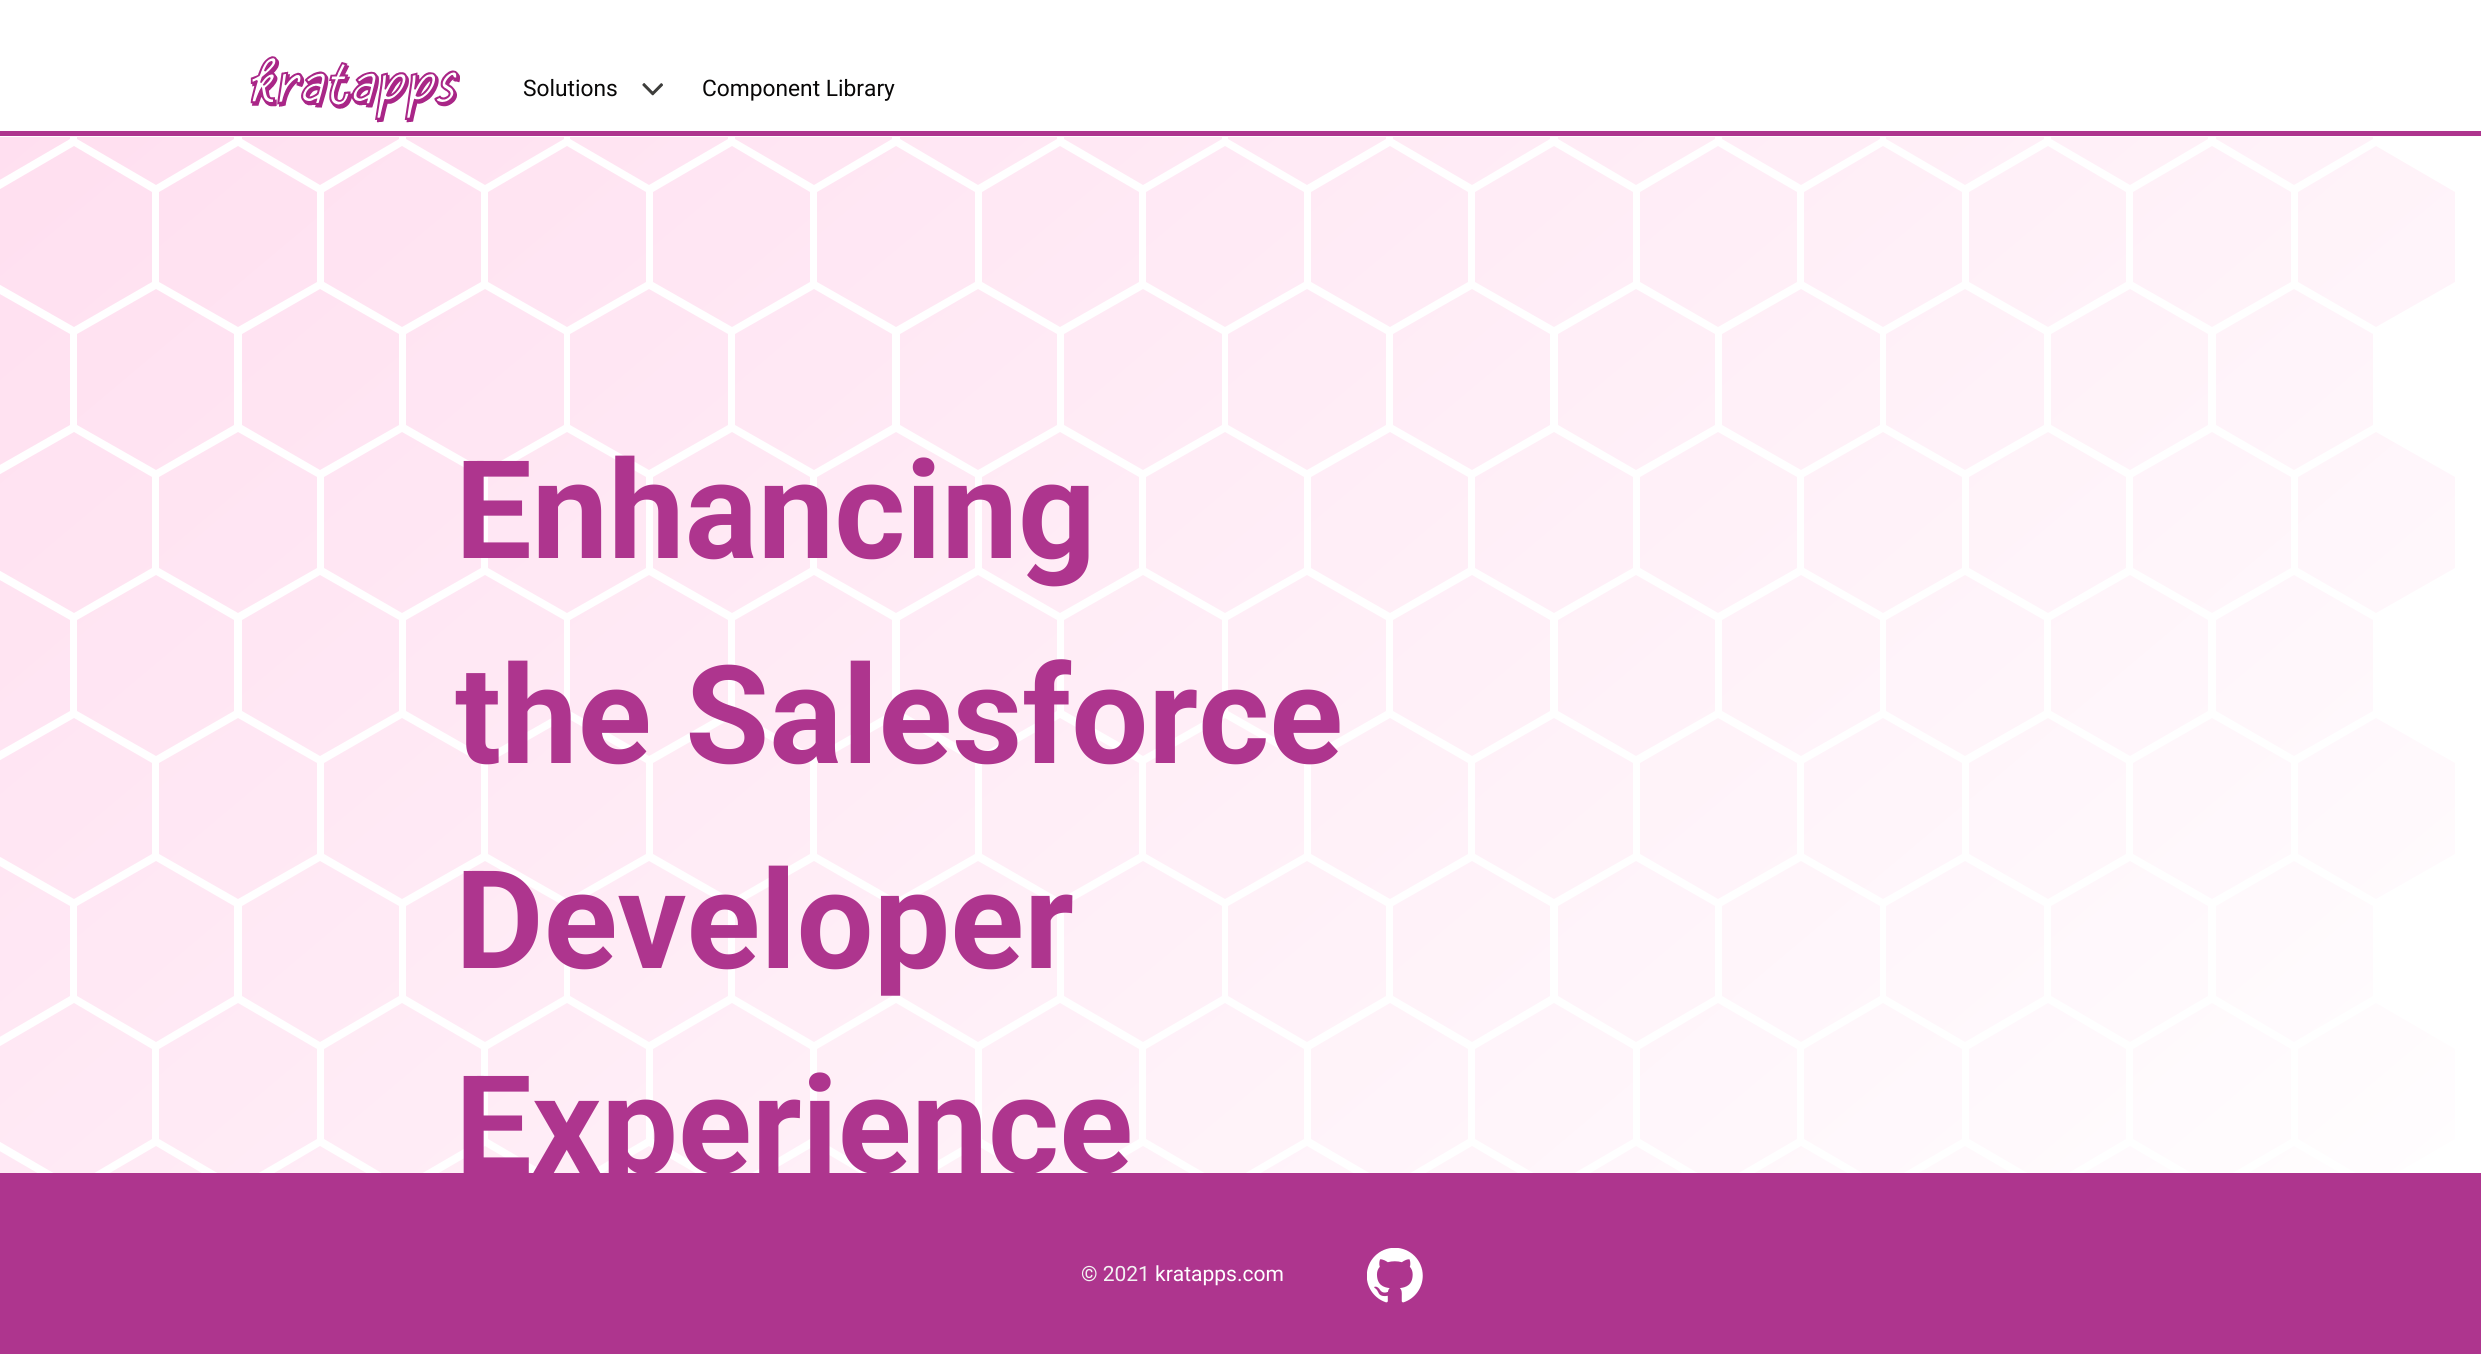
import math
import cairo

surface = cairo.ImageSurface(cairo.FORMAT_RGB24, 2481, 1354)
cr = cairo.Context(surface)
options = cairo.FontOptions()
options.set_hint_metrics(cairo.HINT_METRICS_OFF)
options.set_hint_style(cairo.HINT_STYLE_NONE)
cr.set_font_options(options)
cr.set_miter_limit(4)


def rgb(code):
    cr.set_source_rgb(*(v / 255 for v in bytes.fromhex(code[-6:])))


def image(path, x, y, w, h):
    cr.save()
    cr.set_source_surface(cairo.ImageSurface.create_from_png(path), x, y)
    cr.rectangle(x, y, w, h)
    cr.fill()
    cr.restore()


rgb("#ffffff")
cr.paint()
gradient = cairo.LinearGradient(330, -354, 2060, 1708)
gradient.add_color_stop_rgba(0, 1, 0.867, 0.937, 1)
gradient.add_color_stop_rgba(1, 1, 1, 1, 1)
cr.set_source(gradient)
cr.new_path()
cr.move_to(-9, 4)
cr.line_to(-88, 49)
cr.line_to(-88, 139)
cr.line_to(-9, 185)
cr.line_to(70, 139)
cr.line_to(70, 49)
cr.close_path()
cr.fill()
cr.new_path()
cr.move_to(156, 4)
cr.line_to(77, 49)
cr.line_to(77, 139)
cr.line_to(156, 185)
cr.line_to(234, 139)
cr.line_to(234, 49)
cr.close_path()
cr.fill()
cr.new_path()
cr.move_to(320, 4)
cr.line_to(242, 49)
cr.line_to(242, 139)
cr.line_to(320, 185)
cr.line_to(399, 139)
cr.line_to(399, 49)
cr.close_path()
cr.fill()
cr.new_path()
cr.move_to(485, 4)
cr.line_to(406, 49)
cr.line_to(406, 139)
cr.line_to(485, 185)
cr.line_to(564, 139)
cr.line_to(564, 49)
cr.close_path()
cr.fill()
cr.new_path()
cr.move_to(649, 4)
cr.line_to(570, 49)
cr.line_to(570, 139)
cr.line_to(649, 185)
cr.line_to(728, 139)
cr.line_to(728, 49)
cr.close_path()
cr.fill()
cr.new_path()
cr.move_to(814, 4)
cr.line_to(735, 49)
cr.line_to(735, 139)
cr.line_to(814, 185)
cr.line_to(892, 139)
cr.line_to(892, 49)
cr.close_path()
cr.fill()
cr.new_path()
cr.move_to(978, 4)
cr.line_to(900, 49)
cr.line_to(900, 139)
cr.line_to(978, 185)
cr.line_to(1057, 139)
cr.line_to(1057, 49)
cr.close_path()
cr.fill()
cr.new_path()
cr.move_to(1143, 4)
cr.line_to(1064, 49)
cr.line_to(1064, 139)
cr.line_to(1143, 185)
cr.line_to(1222, 139)
cr.line_to(1222, 49)
cr.close_path()
cr.fill()
cr.new_path()
cr.move_to(1307, 4)
cr.line_to(1228, 49)
cr.line_to(1228, 139)
cr.line_to(1307, 185)
cr.line_to(1386, 139)
cr.line_to(1386, 49)
cr.close_path()
cr.fill()
cr.new_path()
cr.move_to(1472, 4)
cr.line_to(1393, 49)
cr.line_to(1393, 139)
cr.line_to(1472, 185)
cr.line_to(1550, 139)
cr.line_to(1550, 49)
cr.close_path()
cr.fill()
cr.new_path()
cr.move_to(1636, 4)
cr.line_to(1558, 49)
cr.line_to(1558, 139)
cr.line_to(1636, 185)
cr.line_to(1715, 139)
cr.line_to(1715, 49)
cr.close_path()
cr.fill()
cr.new_path()
cr.move_to(1801, 4)
cr.line_to(1722, 49)
cr.line_to(1722, 139)
cr.line_to(1801, 185)
cr.line_to(1880, 139)
cr.line_to(1880, 49)
cr.close_path()
cr.fill()
cr.new_path()
cr.move_to(1965, 4)
cr.line_to(1886, 49)
cr.line_to(1886, 139)
cr.line_to(1965, 185)
cr.line_to(2044, 139)
cr.line_to(2044, 49)
cr.close_path()
cr.fill()
cr.new_path()
cr.move_to(2130, 4)
cr.line_to(2051, 49)
cr.line_to(2051, 139)
cr.line_to(2130, 185)
cr.line_to(2208, 139)
cr.line_to(2208, 49)
cr.close_path()
cr.fill()
cr.new_path()
cr.move_to(2294, 4)
cr.line_to(2216, 49)
cr.line_to(2216, 139)
cr.line_to(2294, 185)
cr.line_to(2373, 139)
cr.line_to(2373, 49)
cr.close_path()
cr.fill()
rgb("#ffffff")
cr.rectangle(0, 4, 2373, 133)
cr.fill()
rgb("#ae358e")
cr.rectangle(0, 131, 2481, 5)
cr.fill()
image("img/1.png", 250, 56, 210, 67)
image("img/2.png", 642, 83, 21, 13)
gradient = cairo.LinearGradient(330, -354, 2060, 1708)
gradient.add_color_stop_rgba(0, 1, 0.867, 0.937, 1)
gradient.add_color_stop_rgba(1, 1, 1, 1, 1)
cr.set_source(gradient)
cr.new_path()
cr.move_to(74, 146)
cr.line_to(-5, 192)
cr.line_to(-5, 282)
cr.line_to(74, 327)
cr.line_to(152, 282)
cr.line_to(152, 192)
cr.close_path()
cr.fill()
cr.new_path()
cr.move_to(238, 146)
cr.line_to(159, 192)
cr.line_to(159, 282)
cr.line_to(238, 327)
cr.line_to(317, 282)
cr.line_to(317, 192)
cr.close_path()
cr.fill()
cr.new_path()
cr.move_to(402, 146)
cr.line_to(324, 192)
cr.line_to(324, 282)
cr.line_to(402, 327)
cr.line_to(481, 282)
cr.line_to(481, 192)
cr.close_path()
cr.fill()
cr.new_path()
cr.move_to(567, 146)
cr.line_to(488, 192)
cr.line_to(488, 282)
cr.line_to(567, 327)
cr.line_to(646, 282)
cr.line_to(646, 192)
cr.close_path()
cr.fill()
cr.new_path()
cr.move_to(732, 146)
cr.line_to(653, 192)
cr.line_to(653, 282)
cr.line_to(732, 327)
cr.line_to(810, 282)
cr.line_to(810, 192)
cr.close_path()
cr.fill()
cr.new_path()
cr.move_to(896, 146)
cr.line_to(817, 192)
cr.line_to(817, 282)
cr.line_to(896, 327)
cr.line_to(975, 282)
cr.line_to(975, 192)
cr.close_path()
cr.fill()
cr.new_path()
cr.move_to(1060, 146)
cr.line_to(982, 192)
cr.line_to(982, 282)
cr.line_to(1060, 327)
cr.line_to(1139, 282)
cr.line_to(1139, 192)
cr.close_path()
cr.fill()
cr.new_path()
cr.move_to(1225, 146)
cr.line_to(1146, 192)
cr.line_to(1146, 282)
cr.line_to(1225, 327)
cr.line_to(1304, 282)
cr.line_to(1304, 192)
cr.close_path()
cr.fill()
cr.new_path()
cr.move_to(1390, 146)
cr.line_to(1311, 192)
cr.line_to(1311, 282)
cr.line_to(1390, 327)
cr.line_to(1468, 282)
cr.line_to(1468, 192)
cr.close_path()
cr.fill()
cr.new_path()
cr.move_to(1554, 146)
cr.line_to(1475, 192)
cr.line_to(1475, 282)
cr.line_to(1554, 327)
cr.line_to(1633, 282)
cr.line_to(1633, 192)
cr.close_path()
cr.fill()
cr.new_path()
cr.move_to(1718, 146)
cr.line_to(1640, 192)
cr.line_to(1640, 282)
cr.line_to(1718, 327)
cr.line_to(1797, 282)
cr.line_to(1797, 192)
cr.close_path()
cr.fill()
cr.new_path()
cr.move_to(1883, 146)
cr.line_to(1804, 192)
cr.line_to(1804, 282)
cr.line_to(1883, 327)
cr.line_to(1962, 282)
cr.line_to(1962, 192)
cr.close_path()
cr.fill()
cr.new_path()
cr.move_to(2048, 146)
cr.line_to(1969, 192)
cr.line_to(1969, 282)
cr.line_to(2048, 327)
cr.line_to(2126, 282)
cr.line_to(2126, 192)
cr.close_path()
cr.fill()
cr.new_path()
cr.move_to(2212, 146)
cr.line_to(2133, 192)
cr.line_to(2133, 282)
cr.line_to(2212, 327)
cr.line_to(2291, 282)
cr.line_to(2291, 192)
cr.close_path()
cr.fill()
cr.new_path()
cr.move_to(2376, 146)
cr.line_to(2298, 192)
cr.line_to(2298, 282)
cr.line_to(2376, 327)
cr.line_to(2455, 282)
cr.line_to(2455, 192)
cr.close_path()
cr.fill()
cr.new_path()
cr.move_to(-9, 289)
cr.line_to(-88, 334)
cr.line_to(-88, 425)
cr.line_to(-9, 470)
cr.line_to(70, 425)
cr.line_to(70, 334)
cr.close_path()
cr.fill()
cr.new_path()
cr.move_to(156, 289)
cr.line_to(77, 334)
cr.line_to(77, 425)
cr.line_to(156, 470)
cr.line_to(234, 425)
cr.line_to(234, 334)
cr.close_path()
cr.fill()
cr.new_path()
cr.move_to(320, 289)
cr.line_to(242, 334)
cr.line_to(242, 425)
cr.line_to(320, 470)
cr.line_to(399, 425)
cr.line_to(399, 334)
cr.close_path()
cr.fill()
cr.new_path()
cr.move_to(485, 289)
cr.line_to(406, 334)
cr.line_to(406, 425)
cr.line_to(485, 470)
cr.line_to(564, 425)
cr.line_to(564, 334)
cr.close_path()
cr.fill()
cr.new_path()
cr.move_to(649, 289)
cr.line_to(570, 334)
cr.line_to(570, 425)
cr.line_to(649, 470)
cr.line_to(728, 425)
cr.line_to(728, 334)
cr.close_path()
cr.fill()
cr.new_path()
cr.move_to(814, 289)
cr.line_to(735, 334)
cr.line_to(735, 425)
cr.line_to(814, 470)
cr.line_to(892, 425)
cr.line_to(892, 334)
cr.close_path()
cr.fill()
cr.new_path()
cr.move_to(978, 289)
cr.line_to(900, 334)
cr.line_to(900, 425)
cr.line_to(978, 470)
cr.line_to(1057, 425)
cr.line_to(1057, 334)
cr.close_path()
cr.fill()
cr.new_path()
cr.move_to(1143, 289)
cr.line_to(1064, 334)
cr.line_to(1064, 425)
cr.line_to(1143, 470)
cr.line_to(1222, 425)
cr.line_to(1222, 334)
cr.close_path()
cr.fill()
cr.new_path()
cr.move_to(1307, 289)
cr.line_to(1228, 334)
cr.line_to(1228, 425)
cr.line_to(1307, 470)
cr.line_to(1386, 425)
cr.line_to(1386, 334)
cr.close_path()
cr.fill()
cr.new_path()
cr.move_to(1472, 289)
cr.line_to(1393, 334)
cr.line_to(1393, 425)
cr.line_to(1472, 470)
cr.line_to(1550, 425)
cr.line_to(1550, 334)
cr.close_path()
cr.fill()
cr.new_path()
cr.move_to(1636, 289)
cr.line_to(1558, 334)
cr.line_to(1558, 425)
cr.line_to(1636, 470)
cr.line_to(1715, 425)
cr.line_to(1715, 334)
cr.close_path()
cr.fill()
cr.new_path()
cr.move_to(1801, 289)
cr.line_to(1722, 334)
cr.line_to(1722, 425)
cr.line_to(1801, 470)
cr.line_to(1880, 425)
cr.line_to(1880, 334)
cr.close_path()
cr.fill()
cr.new_path()
cr.move_to(1965, 289)
cr.line_to(1886, 334)
cr.line_to(1886, 425)
cr.line_to(1965, 470)
cr.line_to(2044, 425)
cr.line_to(2044, 334)
cr.close_path()
cr.fill()
cr.new_path()
cr.move_to(2130, 289)
cr.line_to(2051, 334)
cr.line_to(2051, 425)
cr.line_to(2130, 470)
cr.line_to(2208, 425)
cr.line_to(2208, 334)
cr.close_path()
cr.fill()
cr.new_path()
cr.move_to(2294, 289)
cr.line_to(2216, 334)
cr.line_to(2216, 425)
cr.line_to(2294, 470)
cr.line_to(2373, 425)
cr.line_to(2373, 334)
cr.close_path()
cr.fill()
cr.new_path()
cr.move_to(74, 432)
cr.line_to(-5, 477)
cr.line_to(-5, 568)
cr.line_to(74, 613)
cr.line_to(152, 568)
cr.line_to(152, 477)
cr.close_path()
cr.fill()
cr.new_path()
cr.move_to(238, 432)
cr.line_to(159, 477)
cr.line_to(159, 568)
cr.line_to(238, 613)
cr.line_to(317, 568)
cr.line_to(317, 477)
cr.close_path()
cr.fill()
cr.new_path()
cr.move_to(402, 432)
cr.line_to(324, 477)
cr.line_to(324, 568)
cr.line_to(402, 613)
cr.line_to(481, 568)
cr.line_to(481, 477)
cr.close_path()
cr.fill()
cr.new_path()
cr.move_to(567, 432)
cr.line_to(488, 477)
cr.line_to(488, 568)
cr.line_to(567, 613)
cr.line_to(646, 568)
cr.line_to(646, 477)
cr.close_path()
cr.fill()
cr.new_path()
cr.move_to(732, 432)
cr.line_to(653, 477)
cr.line_to(653, 568)
cr.line_to(732, 613)
cr.line_to(810, 568)
cr.line_to(810, 477)
cr.close_path()
cr.fill()
cr.new_path()
cr.move_to(896, 432)
cr.line_to(817, 477)
cr.line_to(817, 568)
cr.line_to(896, 613)
cr.line_to(975, 568)
cr.line_to(975, 477)
cr.close_path()
cr.fill()
cr.new_path()
cr.move_to(1060, 432)
cr.line_to(982, 477)
cr.line_to(982, 568)
cr.line_to(1060, 613)
cr.line_to(1139, 568)
cr.line_to(1139, 477)
cr.close_path()
cr.fill()
cr.new_path()
cr.move_to(1225, 432)
cr.line_to(1146, 477)
cr.line_to(1146, 568)
cr.line_to(1225, 613)
cr.line_to(1304, 568)
cr.line_to(1304, 477)
cr.close_path()
cr.fill()
cr.new_path()
cr.move_to(1390, 432)
cr.line_to(1311, 477)
cr.line_to(1311, 568)
cr.line_to(1390, 613)
cr.line_to(1468, 568)
cr.line_to(1468, 477)
cr.close_path()
cr.fill()
cr.new_path()
cr.move_to(1554, 432)
cr.line_to(1475, 477)
cr.line_to(1475, 568)
cr.line_to(1554, 613)
cr.line_to(1633, 568)
cr.line_to(1633, 477)
cr.close_path()
cr.fill()
cr.new_path()
cr.move_to(1718, 432)
cr.line_to(1640, 477)
cr.line_to(1640, 568)
cr.line_to(1718, 613)
cr.line_to(1797, 568)
cr.line_to(1797, 477)
cr.close_path()
cr.fill()
cr.new_path()
cr.move_to(1883, 432)
cr.line_to(1804, 477)
cr.line_to(1804, 568)
cr.line_to(1883, 613)
cr.line_to(1962, 568)
cr.line_to(1962, 477)
cr.close_path()
cr.fill()
cr.new_path()
cr.move_to(2048, 432)
cr.line_to(1969, 477)
cr.line_to(1969, 568)
cr.line_to(2048, 613)
cr.line_to(2126, 568)
cr.line_to(2126, 477)
cr.close_path()
cr.fill()
cr.new_path()
cr.move_to(2212, 432)
cr.line_to(2133, 477)
cr.line_to(2133, 568)
cr.line_to(2212, 613)
cr.line_to(2291, 568)
cr.line_to(2291, 477)
cr.close_path()
cr.fill()
cr.new_path()
cr.move_to(2376, 432)
cr.line_to(2298, 477)
cr.line_to(2298, 568)
cr.line_to(2376, 613)
cr.line_to(2455, 568)
cr.line_to(2455, 477)
cr.close_path()
cr.fill()
cr.new_path()
cr.move_to(-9, 575)
cr.line_to(-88, 620)
cr.line_to(-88, 711)
cr.line_to(-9, 756)
cr.line_to(70, 711)
cr.line_to(70, 620)
cr.close_path()
cr.fill()
cr.new_path()
cr.move_to(156, 575)
cr.line_to(77, 620)
cr.line_to(77, 711)
cr.line_to(156, 756)
cr.line_to(234, 711)
cr.line_to(234, 620)
cr.close_path()
cr.fill()
cr.new_path()
cr.move_to(320, 575)
cr.line_to(242, 620)
cr.line_to(242, 711)
cr.line_to(320, 756)
cr.line_to(399, 711)
cr.line_to(399, 620)
cr.close_path()
cr.fill()
cr.new_path()
cr.move_to(485, 575)
cr.line_to(406, 620)
cr.line_to(406, 711)
cr.line_to(485, 756)
cr.line_to(564, 711)
cr.line_to(564, 620)
cr.close_path()
cr.fill()
cr.new_path()
cr.move_to(649, 575)
cr.line_to(570, 620)
cr.line_to(570, 711)
cr.line_to(649, 756)
cr.line_to(728, 711)
cr.line_to(728, 620)
cr.close_path()
cr.fill()
cr.new_path()
cr.move_to(814, 575)
cr.line_to(735, 620)
cr.line_to(735, 711)
cr.line_to(814, 756)
cr.line_to(892, 711)
cr.line_to(892, 620)
cr.close_path()
cr.fill()
cr.new_path()
cr.move_to(978, 575)
cr.line_to(900, 620)
cr.line_to(900, 711)
cr.line_to(978, 756)
cr.line_to(1057, 711)
cr.line_to(1057, 620)
cr.close_path()
cr.fill()
cr.new_path()
cr.move_to(1143, 575)
cr.line_to(1064, 620)
cr.line_to(1064, 711)
cr.line_to(1143, 756)
cr.line_to(1222, 711)
cr.line_to(1222, 620)
cr.close_path()
cr.fill()
cr.new_path()
cr.move_to(1307, 575)
cr.line_to(1228, 620)
cr.line_to(1228, 711)
cr.line_to(1307, 756)
cr.line_to(1386, 711)
cr.line_to(1386, 620)
cr.close_path()
cr.fill()
cr.new_path()
cr.move_to(1472, 575)
cr.line_to(1393, 620)
cr.line_to(1393, 711)
cr.line_to(1472, 756)
cr.line_to(1550, 711)
cr.line_to(1550, 620)
cr.close_path()
cr.fill()
cr.new_path()
cr.move_to(1636, 575)
cr.line_to(1558, 620)
cr.line_to(1558, 711)
cr.line_to(1636, 756)
cr.line_to(1715, 711)
cr.line_to(1715, 620)
cr.close_path()
cr.fill()
cr.new_path()
cr.move_to(1801, 575)
cr.line_to(1722, 620)
cr.line_to(1722, 711)
cr.line_to(1801, 756)
cr.line_to(1880, 711)
cr.line_to(1880, 620)
cr.close_path()
cr.fill()
cr.new_path()
cr.move_to(1965, 575)
cr.line_to(1886, 620)
cr.line_to(1886, 711)
cr.line_to(1965, 756)
cr.line_to(2044, 711)
cr.line_to(2044, 620)
cr.close_path()
cr.fill()
cr.new_path()
cr.move_to(2130, 575)
cr.line_to(2051, 620)
cr.line_to(2051, 711)
cr.line_to(2130, 756)
cr.line_to(2208, 711)
cr.line_to(2208, 620)
cr.close_path()
cr.fill()
cr.new_path()
cr.move_to(2294, 575)
cr.line_to(2216, 620)
cr.line_to(2216, 711)
cr.line_to(2294, 756)
cr.line_to(2373, 711)
cr.line_to(2373, 620)
cr.close_path()
cr.fill()
cr.new_path()
cr.move_to(74, 718)
cr.line_to(-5, 763)
cr.line_to(-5, 854)
cr.line_to(74, 899)
cr.line_to(152, 854)
cr.line_to(152, 763)
cr.close_path()
cr.fill()
cr.new_path()
cr.move_to(238, 718)
cr.line_to(159, 763)
cr.line_to(159, 854)
cr.line_to(238, 899)
cr.line_to(317, 854)
cr.line_to(317, 763)
cr.close_path()
cr.fill()
cr.new_path()
cr.move_to(402, 718)
cr.line_to(324, 763)
cr.line_to(324, 854)
cr.line_to(402, 899)
cr.line_to(481, 854)
cr.line_to(481, 763)
cr.close_path()
cr.fill()
cr.new_path()
cr.move_to(567, 718)
cr.line_to(488, 763)
cr.line_to(488, 854)
cr.line_to(567, 899)
cr.line_to(646, 854)
cr.line_to(646, 763)
cr.close_path()
cr.fill()
cr.new_path()
cr.move_to(732, 718)
cr.line_to(653, 763)
cr.line_to(653, 854)
cr.line_to(732, 899)
cr.line_to(810, 854)
cr.line_to(810, 763)
cr.close_path()
cr.fill()
cr.new_path()
cr.move_to(896, 718)
cr.line_to(817, 763)
cr.line_to(817, 854)
cr.line_to(896, 899)
cr.line_to(975, 854)
cr.line_to(975, 763)
cr.close_path()
cr.fill()
cr.new_path()
cr.move_to(1060, 718)
cr.line_to(982, 763)
cr.line_to(982, 854)
cr.line_to(1060, 899)
cr.line_to(1139, 854)
cr.line_to(1139, 763)
cr.close_path()
cr.fill()
cr.new_path()
cr.move_to(1225, 718)
cr.line_to(1146, 763)
cr.line_to(1146, 854)
cr.line_to(1225, 899)
cr.line_to(1304, 854)
cr.line_to(1304, 763)
cr.close_path()
cr.fill()
cr.new_path()
cr.move_to(1390, 718)
cr.line_to(1311, 763)
cr.line_to(1311, 854)
cr.line_to(1390, 899)
cr.line_to(1468, 854)
cr.line_to(1468, 763)
cr.close_path()
cr.fill()
cr.new_path()
cr.move_to(1554, 718)
cr.line_to(1475, 763)
cr.line_to(1475, 854)
cr.line_to(1554, 899)
cr.line_to(1633, 854)
cr.line_to(1633, 763)
cr.close_path()
cr.fill()
cr.new_path()
cr.move_to(1718, 718)
cr.line_to(1640, 763)
cr.line_to(1640, 854)
cr.line_to(1718, 899)
cr.line_to(1797, 854)
cr.line_to(1797, 763)
cr.close_path()
cr.fill()
cr.new_path()
cr.move_to(1883, 718)
cr.line_to(1804, 763)
cr.line_to(1804, 854)
cr.line_to(1883, 899)
cr.line_to(1962, 854)
cr.line_to(1962, 763)
cr.close_path()
cr.fill()
cr.new_path()
cr.move_to(2048, 718)
cr.line_to(1969, 763)
cr.line_to(1969, 854)
cr.line_to(2048, 899)
cr.line_to(2126, 854)
cr.line_to(2126, 763)
cr.close_path()
cr.fill()
cr.new_path()
cr.move_to(2212, 718)
cr.line_to(2133, 763)
cr.line_to(2133, 854)
cr.line_to(2212, 899)
cr.line_to(2291, 854)
cr.line_to(2291, 763)
cr.close_path()
cr.fill()
cr.new_path()
cr.move_to(2376, 718)
cr.line_to(2298, 763)
cr.line_to(2298, 854)
cr.line_to(2376, 899)
cr.line_to(2455, 854)
cr.line_to(2455, 763)
cr.close_path()
cr.fill()
cr.new_path()
cr.move_to(-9, 861)
cr.line_to(-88, 906)
cr.line_to(-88, 996)
cr.line_to(-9, 1042)
cr.line_to(70, 996)
cr.line_to(70, 906)
cr.close_path()
cr.fill()
cr.new_path()
cr.move_to(156, 861)
cr.line_to(77, 906)
cr.line_to(77, 996)
cr.line_to(156, 1042)
cr.line_to(234, 996)
cr.line_to(234, 906)
cr.close_path()
cr.fill()
cr.new_path()
cr.move_to(320, 861)
cr.line_to(242, 906)
cr.line_to(242, 996)
cr.line_to(320, 1042)
cr.line_to(399, 996)
cr.line_to(399, 906)
cr.close_path()
cr.fill()
cr.new_path()
cr.move_to(485, 861)
cr.line_to(406, 906)
cr.line_to(406, 996)
cr.line_to(485, 1042)
cr.line_to(564, 996)
cr.line_to(564, 906)
cr.close_path()
cr.fill()
cr.new_path()
cr.move_to(649, 861)
cr.line_to(570, 906)
cr.line_to(570, 996)
cr.line_to(649, 1042)
cr.line_to(728, 996)
cr.line_to(728, 906)
cr.close_path()
cr.fill()
cr.new_path()
cr.move_to(814, 861)
cr.line_to(735, 906)
cr.line_to(735, 996)
cr.line_to(814, 1042)
cr.line_to(892, 996)
cr.line_to(892, 906)
cr.close_path()
cr.fill()
cr.new_path()
cr.move_to(978, 861)
cr.line_to(900, 906)
cr.line_to(900, 996)
cr.line_to(978, 1042)
cr.line_to(1057, 996)
cr.line_to(1057, 906)
cr.close_path()
cr.fill()
cr.new_path()
cr.move_to(1143, 861)
cr.line_to(1064, 906)
cr.line_to(1064, 996)
cr.line_to(1143, 1042)
cr.line_to(1222, 996)
cr.line_to(1222, 906)
cr.close_path()
cr.fill()
cr.new_path()
cr.move_to(1307, 861)
cr.line_to(1228, 906)
cr.line_to(1228, 996)
cr.line_to(1307, 1042)
cr.line_to(1386, 996)
cr.line_to(1386, 906)
cr.close_path()
cr.fill()
cr.new_path()
cr.move_to(1472, 861)
cr.line_to(1393, 906)
cr.line_to(1393, 996)
cr.line_to(1472, 1042)
cr.line_to(1550, 996)
cr.line_to(1550, 906)
cr.close_path()
cr.fill()
cr.new_path()
cr.move_to(1636, 861)
cr.line_to(1558, 906)
cr.line_to(1558, 996)
cr.line_to(1636, 1042)
cr.line_to(1715, 996)
cr.line_to(1715, 906)
cr.close_path()
cr.fill()
cr.new_path()
cr.move_to(1801, 861)
cr.line_to(1722, 906)
cr.line_to(1722, 996)
cr.line_to(1801, 1042)
cr.line_to(1880, 996)
cr.line_to(1880, 906)
cr.close_path()
cr.fill()
cr.new_path()
cr.move_to(1965, 861)
cr.line_to(1886, 906)
cr.line_to(1886, 996)
cr.line_to(1965, 1042)
cr.line_to(2044, 996)
cr.line_to(2044, 906)
cr.close_path()
cr.fill()
cr.new_path()
cr.move_to(2130, 861)
cr.line_to(2051, 906)
cr.line_to(2051, 996)
cr.line_to(2130, 1042)
cr.line_to(2208, 996)
cr.line_to(2208, 906)
cr.close_path()
cr.fill()
cr.new_path()
cr.move_to(2294, 861)
cr.line_to(2216, 906)
cr.line_to(2216, 996)
cr.line_to(2294, 1042)
cr.line_to(2373, 996)
cr.line_to(2373, 906)
cr.close_path()
cr.fill()
cr.new_path()
cr.move_to(74, 1003)
cr.line_to(-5, 1049)
cr.line_to(-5, 1139)
cr.line_to(74, 1185)
cr.line_to(152, 1139)
cr.line_to(152, 1049)
cr.close_path()
cr.fill()
cr.new_path()
cr.move_to(238, 1003)
cr.line_to(159, 1049)
cr.line_to(159, 1139)
cr.line_to(238, 1185)
cr.line_to(317, 1139)
cr.line_to(317, 1049)
cr.close_path()
cr.fill()
cr.new_path()
cr.move_to(402, 1003)
cr.line_to(324, 1049)
cr.line_to(324, 1139)
cr.line_to(402, 1185)
cr.line_to(481, 1139)
cr.line_to(481, 1049)
cr.close_path()
cr.fill()
cr.new_path()
cr.move_to(567, 1003)
cr.line_to(488, 1049)
cr.line_to(488, 1139)
cr.line_to(567, 1185)
cr.line_to(646, 1139)
cr.line_to(646, 1049)
cr.close_path()
cr.fill()
cr.new_path()
cr.move_to(732, 1003)
cr.line_to(653, 1049)
cr.line_to(653, 1139)
cr.line_to(732, 1185)
cr.line_to(810, 1139)
cr.line_to(810, 1049)
cr.close_path()
cr.fill()
cr.new_path()
cr.move_to(896, 1003)
cr.line_to(817, 1049)
cr.line_to(817, 1139)
cr.line_to(896, 1185)
cr.line_to(975, 1139)
cr.line_to(975, 1049)
cr.close_path()
cr.fill()
cr.new_path()
cr.move_to(1060, 1003)
cr.line_to(982, 1049)
cr.line_to(982, 1139)
cr.line_to(1060, 1185)
cr.line_to(1139, 1139)
cr.line_to(1139, 1049)
cr.close_path()
cr.fill()
cr.new_path()
cr.move_to(1225, 1003)
cr.line_to(1146, 1049)
cr.line_to(1146, 1139)
cr.line_to(1225, 1185)
cr.line_to(1304, 1139)
cr.line_to(1304, 1049)
cr.close_path()
cr.fill()
cr.new_path()
cr.move_to(1390, 1003)
cr.line_to(1311, 1049)
cr.line_to(1311, 1139)
cr.line_to(1390, 1185)
cr.line_to(1468, 1139)
cr.line_to(1468, 1049)
cr.close_path()
cr.fill()
cr.new_path()
cr.move_to(1554, 1003)
cr.line_to(1475, 1049)
cr.line_to(1475, 1139)
cr.line_to(1554, 1185)
cr.line_to(1633, 1139)
cr.line_to(1633, 1049)
cr.close_path()
cr.fill()
cr.new_path()
cr.move_to(1718, 1003)
cr.line_to(1640, 1049)
cr.line_to(1640, 1139)
cr.line_to(1718, 1185)
cr.line_to(1797, 1139)
cr.line_to(1797, 1049)
cr.close_path()
cr.fill()
cr.new_path()
cr.move_to(1883, 1003)
cr.line_to(1804, 1049)
cr.line_to(1804, 1139)
cr.line_to(1883, 1185)
cr.line_to(1962, 1139)
cr.line_to(1962, 1049)
cr.close_path()
cr.fill()
cr.new_path()
cr.move_to(2048, 1003)
cr.line_to(1969, 1049)
cr.line_to(1969, 1139)
cr.line_to(2048, 1185)
cr.line_to(2126, 1139)
cr.line_to(2126, 1049)
cr.close_path()
cr.fill()
cr.new_path()
cr.move_to(2212, 1003)
cr.line_to(2133, 1049)
cr.line_to(2133, 1139)
cr.line_to(2212, 1185)
cr.line_to(2291, 1139)
cr.line_to(2291, 1049)
cr.close_path()
cr.fill()
cr.new_path()
cr.move_to(2376, 1003)
cr.line_to(2298, 1049)
cr.line_to(2298, 1139)
cr.line_to(2376, 1185)
cr.line_to(2455, 1139)
cr.line_to(2455, 1049)
cr.close_path()
cr.fill()
cr.new_path()
cr.move_to(-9, 1146)
cr.line_to(-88, 1192)
cr.line_to(-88, 1282)
cr.line_to(-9, 1327)
cr.line_to(70, 1282)
cr.line_to(70, 1192)
cr.close_path()
cr.fill()
cr.new_path()
cr.move_to(156, 1146)
cr.line_to(77, 1192)
cr.line_to(77, 1282)
cr.line_to(156, 1327)
cr.line_to(234, 1282)
cr.line_to(234, 1192)
cr.close_path()
cr.fill()
cr.new_path()
cr.move_to(320, 1146)
cr.line_to(242, 1192)
cr.line_to(242, 1282)
cr.line_to(320, 1327)
cr.line_to(399, 1282)
cr.line_to(399, 1192)
cr.close_path()
cr.fill()
cr.new_path()
cr.move_to(485, 1146)
cr.line_to(406, 1192)
cr.line_to(406, 1282)
cr.line_to(485, 1327)
cr.line_to(564, 1282)
cr.line_to(564, 1192)
cr.close_path()
cr.fill()
cr.new_path()
cr.move_to(649, 1146)
cr.line_to(570, 1192)
cr.line_to(570, 1282)
cr.line_to(649, 1327)
cr.line_to(728, 1282)
cr.line_to(728, 1192)
cr.close_path()
cr.fill()
cr.new_path()
cr.move_to(814, 1146)
cr.line_to(735, 1192)
cr.line_to(735, 1282)
cr.line_to(814, 1327)
cr.line_to(892, 1282)
cr.line_to(892, 1192)
cr.close_path()
cr.fill()
cr.new_path()
cr.move_to(978, 1146)
cr.line_to(900, 1192)
cr.line_to(900, 1282)
cr.line_to(978, 1327)
cr.line_to(1057, 1282)
cr.line_to(1057, 1192)
cr.close_path()
cr.fill()
cr.new_path()
cr.move_to(1143, 1146)
cr.line_to(1064, 1192)
cr.line_to(1064, 1282)
cr.line_to(1143, 1327)
cr.line_to(1222, 1282)
cr.line_to(1222, 1192)
cr.close_path()
cr.fill()
cr.new_path()
cr.move_to(1307, 1146)
cr.line_to(1228, 1192)
cr.line_to(1228, 1282)
cr.line_to(1307, 1327)
cr.line_to(1386, 1282)
cr.line_to(1386, 1192)
cr.close_path()
cr.fill()
cr.new_path()
cr.move_to(1472, 1146)
cr.line_to(1393, 1192)
cr.line_to(1393, 1282)
cr.line_to(1472, 1327)
cr.line_to(1550, 1282)
cr.line_to(1550, 1192)
cr.close_path()
cr.fill()
cr.new_path()
cr.move_to(1636, 1146)
cr.line_to(1558, 1192)
cr.line_to(1558, 1282)
cr.line_to(1636, 1327)
cr.line_to(1715, 1282)
cr.line_to(1715, 1192)
cr.close_path()
cr.fill()
cr.new_path()
cr.move_to(1801, 1146)
cr.line_to(1722, 1192)
cr.line_to(1722, 1282)
cr.line_to(1801, 1327)
cr.line_to(1880, 1282)
cr.line_to(1880, 1192)
cr.close_path()
cr.fill()
cr.new_path()
cr.move_to(1965, 1146)
cr.line_to(1886, 1192)
cr.line_to(1886, 1282)
cr.line_to(1965, 1327)
cr.line_to(2044, 1282)
cr.line_to(2044, 1192)
cr.close_path()
cr.fill()
cr.new_path()
cr.move_to(2130, 1146)
cr.line_to(2051, 1192)
cr.line_to(2051, 1282)
cr.line_to(2130, 1327)
cr.line_to(2208, 1282)
cr.line_to(2208, 1192)
cr.close_path()
cr.fill()
cr.new_path()
cr.move_to(2294, 1146)
cr.line_to(2216, 1192)
cr.line_to(2216, 1282)
cr.line_to(2294, 1327)
cr.line_to(2373, 1282)
cr.line_to(2373, 1192)
cr.close_path()
cr.fill()
rgb("#ae358e")
cr.rectangle(0, 1173, 2481, 181)
cr.fill()
image("img/3.png", 1367, 1248, 56, 55)
cr.select_font_face("Roboto")
cr.set_font_size(22.75)
rgb("#080707")
cr.move_to(523, 96)
cr.show_text("Solutions")
cr.move_to(702, 96)
cr.show_text("Component Library")
cr.select_font_face("Roboto", cairo.FONT_SLANT_NORMAL, cairo.FONT_WEIGHT_BOLD)
cr.set_font_size(136.5)
rgb("#ae358e")
for x, y, s in [
    (455, 558, "Enhancing"),
    (455, 763, "the Salesforce"),
    (455, 968, "Developer"),
    (455, 1173, "Experience"),
]:
    cr.move_to(x, y)
    cr.show_text(s)
cr.select_font_face("Roboto")
cr.set_font_size(21)
rgb("#f3f3f3")
cr.move_to(1081, 1281)
cr.show_text("© 2021")
rgb("#ffffff")
cr.move_to(1155, 1281)
cr.show_text("kratapps.com")
surface.write_to_png("page.png")
